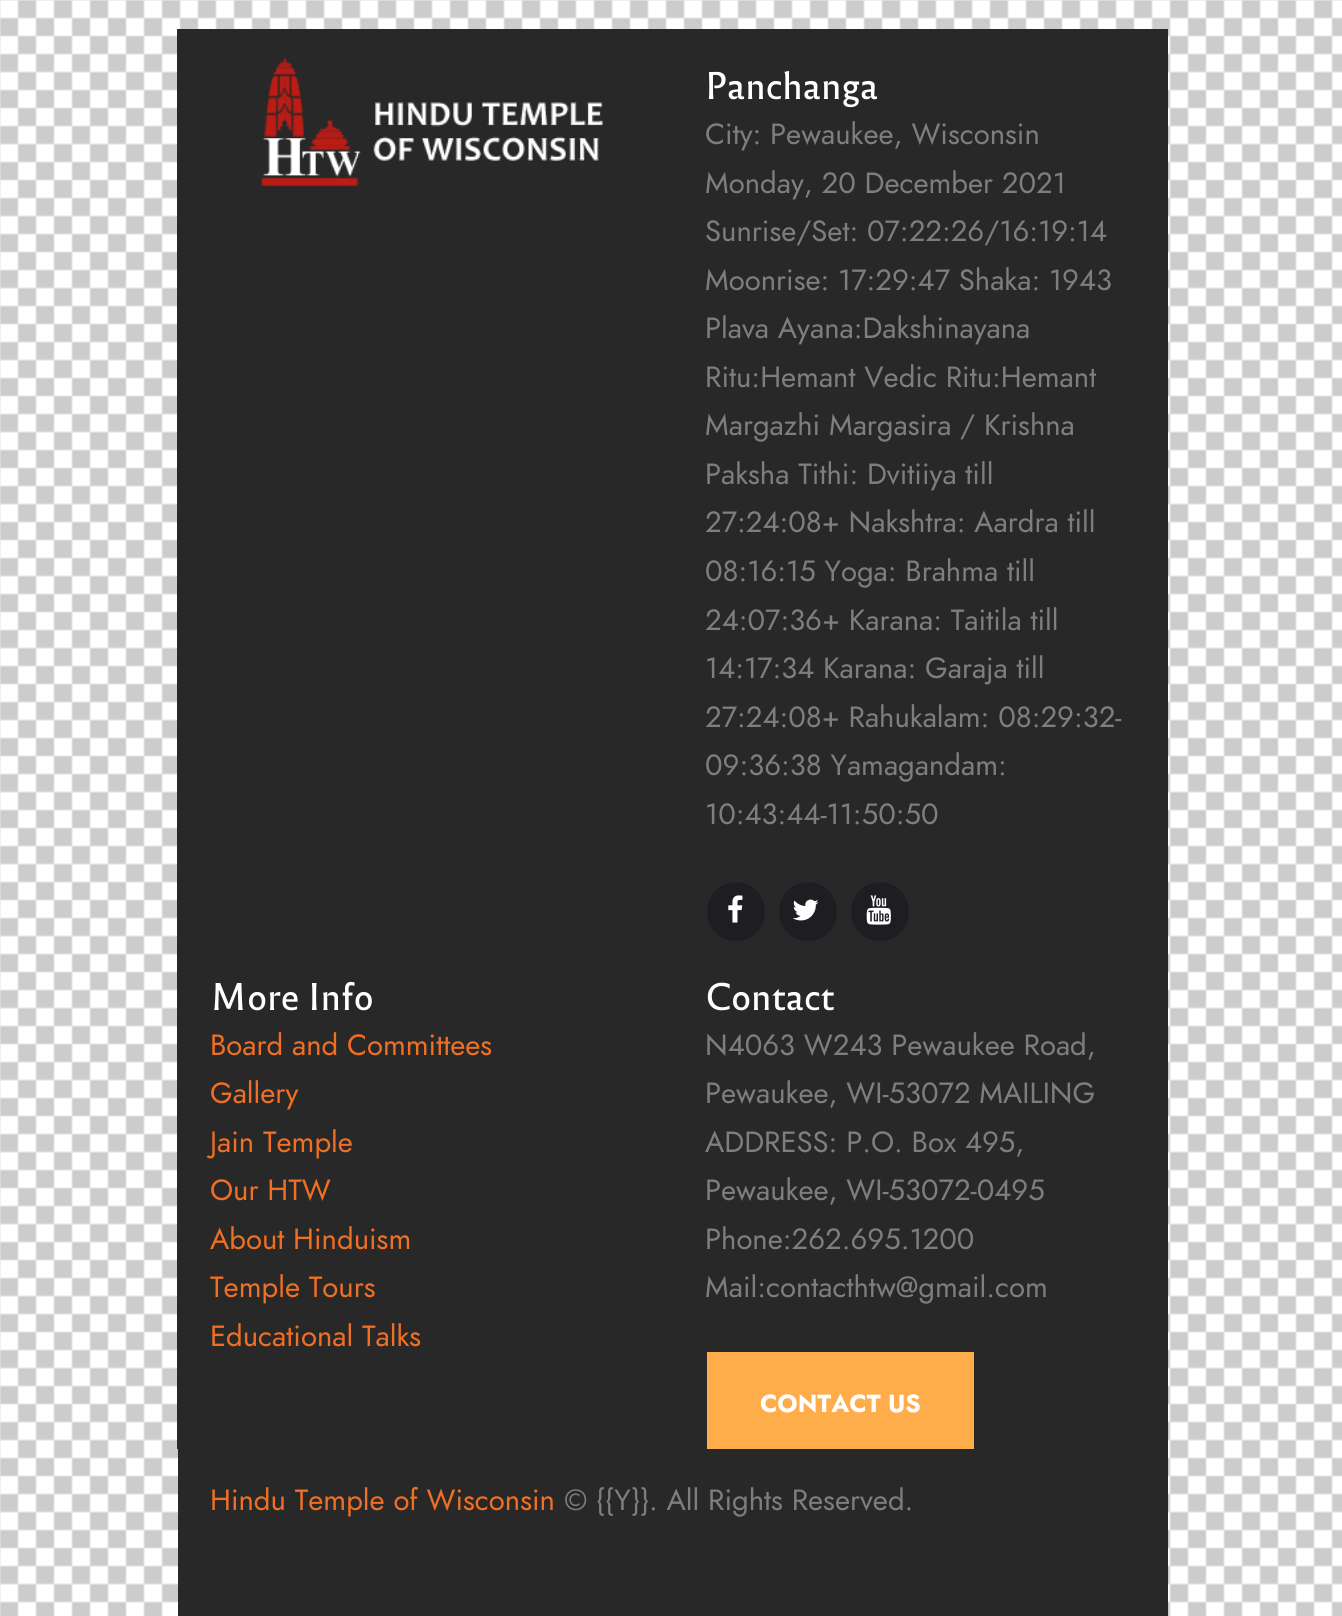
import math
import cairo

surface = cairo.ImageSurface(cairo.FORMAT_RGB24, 1342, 1616)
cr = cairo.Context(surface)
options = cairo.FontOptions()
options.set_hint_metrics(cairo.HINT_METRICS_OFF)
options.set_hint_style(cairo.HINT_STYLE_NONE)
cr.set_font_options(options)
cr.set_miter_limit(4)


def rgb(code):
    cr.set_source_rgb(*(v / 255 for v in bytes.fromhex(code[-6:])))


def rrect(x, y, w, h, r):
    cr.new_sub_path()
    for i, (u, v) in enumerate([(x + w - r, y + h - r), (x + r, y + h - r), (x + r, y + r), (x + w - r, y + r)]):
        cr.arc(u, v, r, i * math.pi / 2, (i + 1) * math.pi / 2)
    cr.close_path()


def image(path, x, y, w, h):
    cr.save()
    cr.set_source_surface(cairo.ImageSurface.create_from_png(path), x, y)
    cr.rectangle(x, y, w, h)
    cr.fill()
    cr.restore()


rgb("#ffffff")
cr.paint()
image("img/1.png", 0, 0, 1342, 1616)
rgb("#282828")
cr.rectangle(177, 29, 991, 1420)
cr.fill()
image("img/2.png", 261, 58, 342, 129)
rgb("#1e1d22")
rrect(707, 882, 58, 59, 29)
cr.fill()
image("img/3.png", 728, 895, 15, 28)
rrect(779, 882, 58, 59, 29)
cr.fill()
image("img/4.png", 792, 899, 27, 22)
rrect(851, 882, 58, 59, 29)
cr.fill()
image("img/5.png", 866, 895, 25, 30)
rgb("#ffac4b")
cr.rectangle(707, 1352, 267, 97)
cr.fill()
rgb("#282828")
cr.rectangle(178, 1449, 990, 167)
cr.fill()
cr.select_font_face("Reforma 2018 Medium")
cr.set_font_size(36)
rgb("#ffffff")
cr.move_to(705, 99)
cr.show_text("Panchanga")
cr.select_font_face("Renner")
cr.set_font_size(29.25)
rgb("#7e7e7e")
for x, y, s in [
    (705, 144, "City: Pewaukee, Wisconsin"),
    (705, 193, "Monday, 20 December 2021"),
    (705, 241, "Sunrise/Set: 07:22:26/16:19:14"),
    (705, 290, "Moonrise: 17:29:47 Shaka: 1943"),
    (705, 338, "Plava Ayana:Dakshinayana"),
    (705, 387, "Ritu:Hemant Vedic Ritu:Hemant"),
    (705, 435, "Margazhi Margasira / Krishna"),
    (705, 484, "Paksha Tithi: Dvitiiya till"),
    (705, 532, "27:24:08+ Nakshtra: Aardra till"),
    (705, 581, "08:16:15 Yoga: Brahma till"),
    (705, 630, "24:07:36+ Karana: Taitila till"),
    (705, 678, "14:17:34 Karana: Garaja till"),
    (705, 727, "27:24:08+ Rahukalam: 08:29:32-"),
    (705, 775, "09:36:38 Yamagandam:"),
    (705, 824, "10:43:44-11:50:50"),
]:
    cr.move_to(x, y)
    cr.show_text(s)
cr.select_font_face("Reforma 2018 Medium")
cr.set_font_size(36)
rgb("#ffffff")
cr.move_to(210, 1010)
cr.show_text("More Info")
cr.select_font_face("Renner")
cr.set_font_size(29.25)
rgb("#f16f23")
for x, y, s in [
    (210, 1055, "Board and Committees"),
    (210, 1103, "Gallery"),
    (210, 1152, "Jain Temple"),
    (210, 1200, "Our HTW"),
    (210, 1249, "About Hinduism"),
    (210, 1297, "Temple Tours"),
    (210, 1346, "Educational Talks"),
]:
    cr.move_to(x, y)
    cr.show_text(s)
cr.select_font_face("Reforma 2018 Medium")
cr.set_font_size(36)
rgb("#ffffff")
cr.move_to(705, 1010)
cr.show_text("Contact")
cr.select_font_face("Renner")
cr.set_font_size(29.25)
rgb("#7e7e7e")
for x, y, s in [
    (705, 1055, "N4063 W243 Pewaukee Road,"),
    (705, 1103, "Pewaukee, WI-53072 MAILING"),
    (705, 1152, "ADDRESS: P.O. Box 495,"),
    (705, 1200, "Pewaukee, WI-53072-0495"),
    (705, 1249, "Phone:262.695.1200"),
    (705, 1297, "Mail:contacthtw@gmail.com"),
]:
    cr.move_to(x, y)
    cr.show_text(s)
cr.select_font_face("Renner", cairo.FONT_SLANT_NORMAL, cairo.FONT_WEIGHT_BOLD)
cr.set_font_size(24.75)
rgb("#ffffff")
cr.move_to(760, 1412)
cr.show_text("CONTACT US")
cr.select_font_face("Renner")
cr.set_font_size(29.25)
rgb("#f16f23")
cr.move_to(210, 1510)
cr.show_text("Hindu Temple of Wisconsin")
rgb("#7e7e7e")
cr.move_to(564, 1510)
cr.show_text("© {{Y}}. All Rights Reserved.")
surface.write_to_png("page.png")
